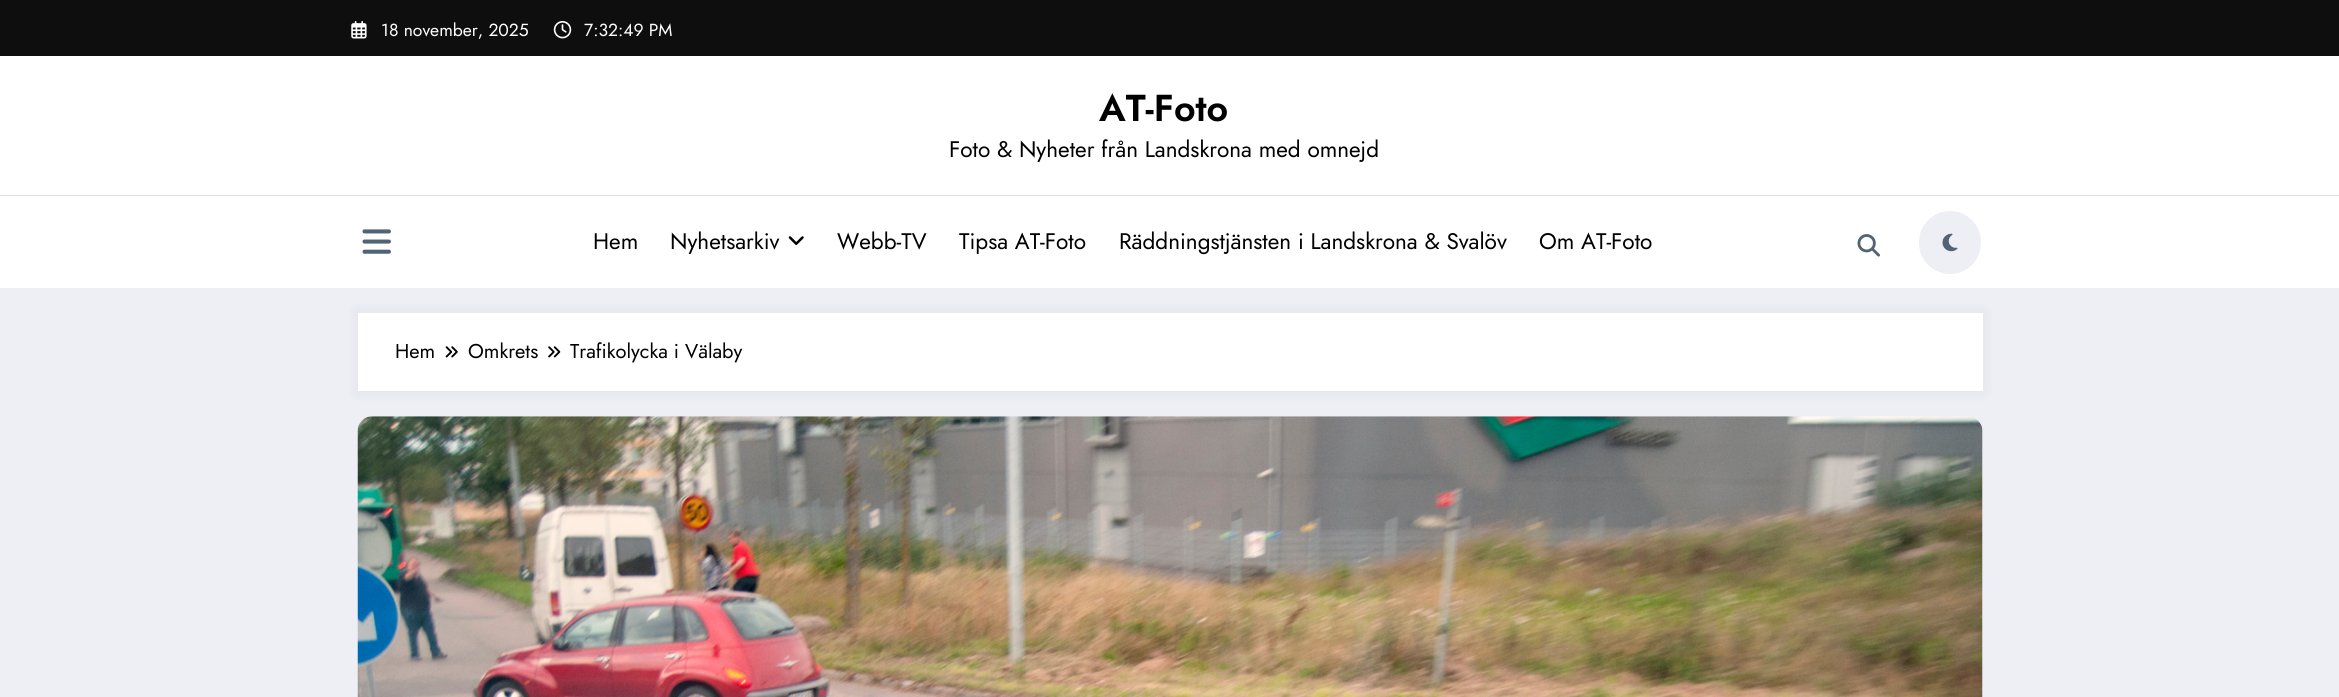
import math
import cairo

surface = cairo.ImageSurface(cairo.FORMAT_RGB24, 2339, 697)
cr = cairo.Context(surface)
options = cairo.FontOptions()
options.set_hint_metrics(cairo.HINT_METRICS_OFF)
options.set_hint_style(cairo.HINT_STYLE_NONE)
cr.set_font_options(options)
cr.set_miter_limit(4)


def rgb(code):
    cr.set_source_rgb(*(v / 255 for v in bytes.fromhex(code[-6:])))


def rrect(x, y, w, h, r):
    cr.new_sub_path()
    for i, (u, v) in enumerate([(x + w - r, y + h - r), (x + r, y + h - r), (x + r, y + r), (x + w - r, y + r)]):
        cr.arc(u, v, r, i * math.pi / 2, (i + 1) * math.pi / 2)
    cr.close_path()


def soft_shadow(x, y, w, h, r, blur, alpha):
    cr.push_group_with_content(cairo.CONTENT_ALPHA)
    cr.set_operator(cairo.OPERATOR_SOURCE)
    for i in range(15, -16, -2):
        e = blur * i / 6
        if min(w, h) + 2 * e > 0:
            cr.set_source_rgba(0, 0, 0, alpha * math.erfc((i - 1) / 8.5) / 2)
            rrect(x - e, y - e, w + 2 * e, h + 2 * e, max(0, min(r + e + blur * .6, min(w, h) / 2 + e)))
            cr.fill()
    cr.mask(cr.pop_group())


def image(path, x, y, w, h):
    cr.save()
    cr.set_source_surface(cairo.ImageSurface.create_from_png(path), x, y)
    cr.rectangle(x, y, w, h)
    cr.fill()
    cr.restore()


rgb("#eeeef5")
cr.paint()
rgb("#0e0e0e")
cr.rectangle(0, 0, 2339, 56)
cr.fill()
image("img/1.png", 351, 21, 16, 18)
image("img/2.png", 553, 20, 19, 19)
rgb("#ffffff")
cr.rectangle(0, 56, 2339, 232)
cr.fill()
rgb("#e1e1e1")
cr.rectangle(0, 195, 2339, 1)
cr.fill()
image("img/3.png", 362, 229, 29, 25)
image("img/4.png", 788, 236, 16, 9)
image("img/5.png", 1857, 234, 23, 23)
rgb("#eeeef5")
rrect(1919, 211, 62, 63, 31)
cr.fill()
image("img/6.png", 1942, 233, 16, 19)
rgb("#171723")
soft_shadow(355, 310, 1630, 84, 0, 5, 0.05)
rgb("#ffffff")
cr.rectangle(358, 313, 1625, 78)
cr.fill()
image("img/7.png", 445, 346, 13, 12)
image("img/8.png", 548, 346, 13, 12)
image("img/9.png", 357, 416, 1626, 281)
cr.select_font_face("Jost")
cr.set_font_size(17.5)
cr.move_to(381, 36)
cr.show_text("18 november, 2025")
cr.move_to(584, 36)
cr.show_text("7:32:49 PM")
cr.select_font_face("Jost SemiBold")
cr.set_font_size(37.5)
rgb("#000000")
cr.move_to(1099, 121)
cr.show_text("AT-Foto")
cr.select_font_face("Jost")
cr.set_font_size(22.5)
for x, y, s in [
    (949, 157, "Foto & Nyheter från Landskrona med omnejd"),
    (593, 249, "Hem"),
    (670, 249, "Nyhetsarkiv"),
    (837, 249, "Webb-TV"),
    (959, 249, "Tipsa AT-Foto"),
    (1119, 249, "Räddningstjänsten i Landskrona & Svalöv"),
    (1539, 249, "Om AT-Foto"),
]:
    cr.move_to(x, y)
    cr.show_text(s)
cr.set_font_size(20)
for x, y, s in [
    (395, 358, "Hem"),
    (468, 358, "Omkrets"),
    (570, 358, "Trafikolycka i Välaby"),
]:
    cr.move_to(x, y)
    cr.show_text(s)
surface.write_to_png("page.png")
